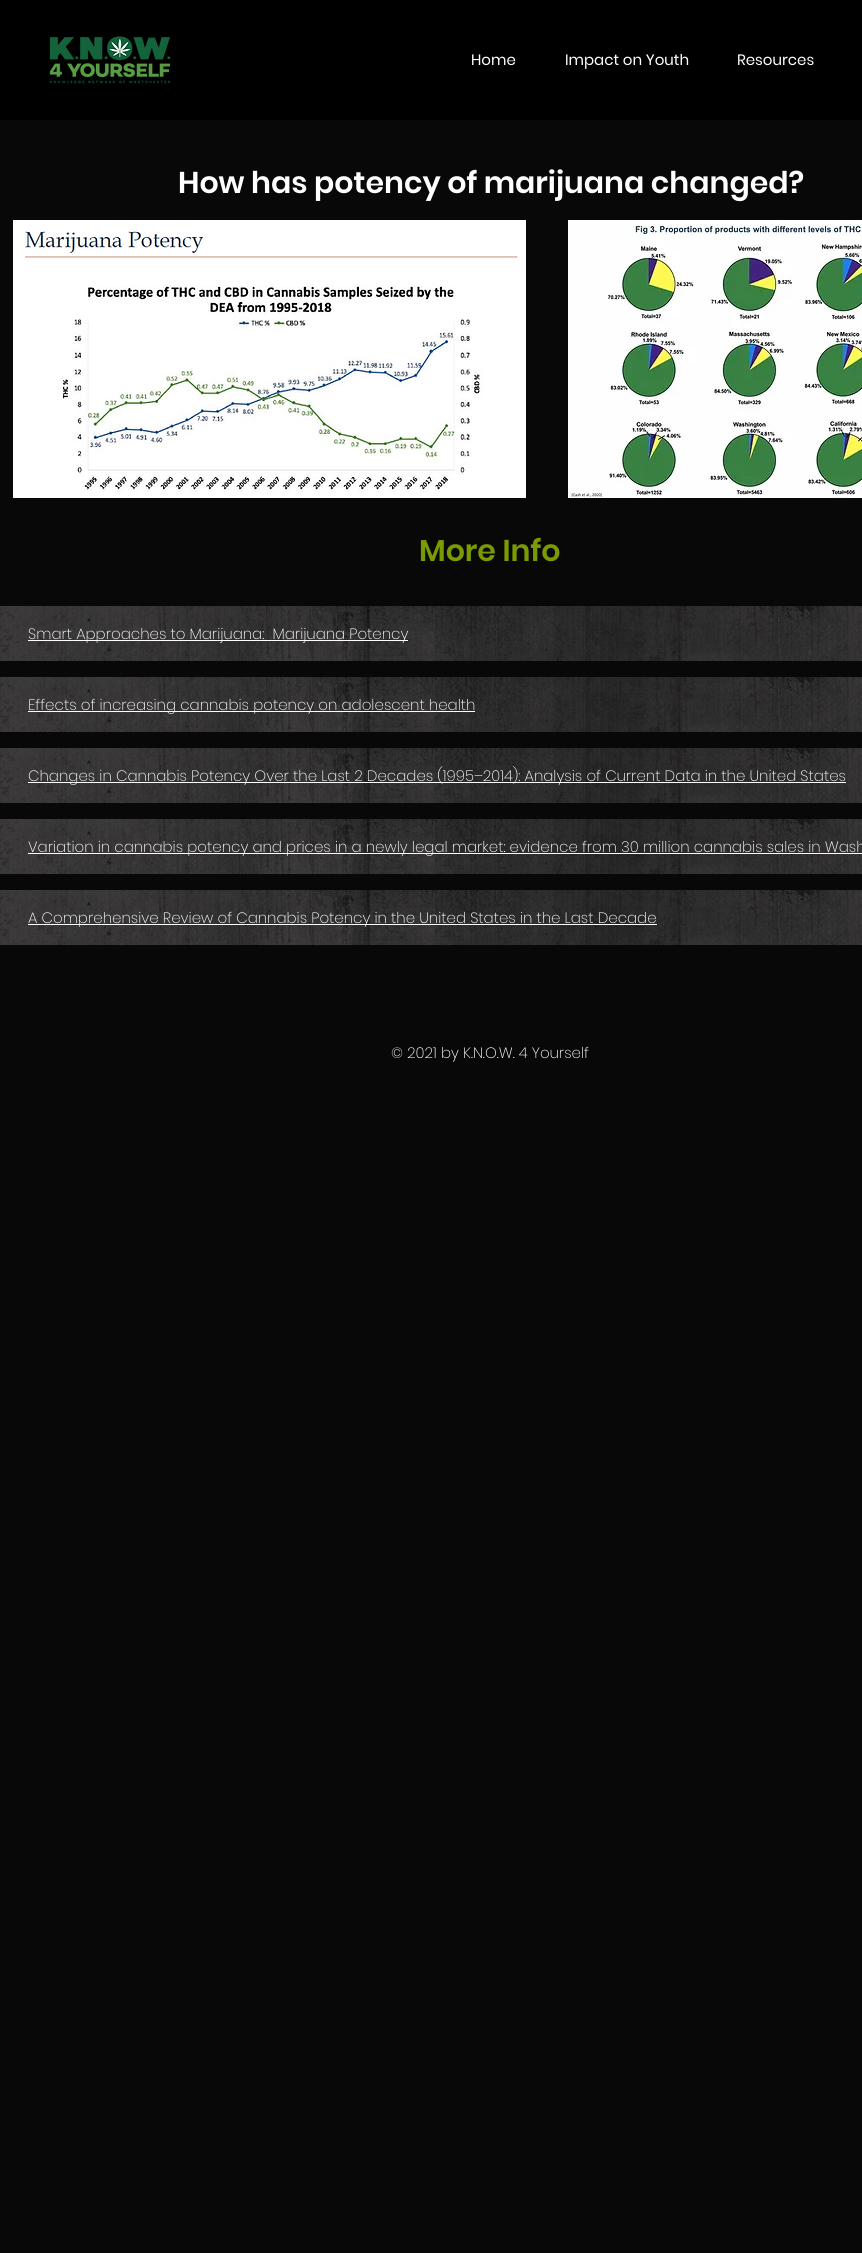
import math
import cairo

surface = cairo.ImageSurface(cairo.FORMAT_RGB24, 862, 2253)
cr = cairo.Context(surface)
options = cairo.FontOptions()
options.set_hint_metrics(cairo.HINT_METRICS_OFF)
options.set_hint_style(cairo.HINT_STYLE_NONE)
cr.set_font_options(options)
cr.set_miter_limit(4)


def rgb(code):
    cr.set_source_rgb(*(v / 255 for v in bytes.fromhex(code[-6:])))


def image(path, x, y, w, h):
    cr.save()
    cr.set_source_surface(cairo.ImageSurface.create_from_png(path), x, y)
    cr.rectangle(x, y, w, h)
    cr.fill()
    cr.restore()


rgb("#080808")
cr.paint()
rgb("#000000")
cr.rectangle(0, 0, 862, 120)
cr.fill()
image("img/1.png", 49, 36, 122, 48)
image("img/2.png", 13, 220, 513, 278)
image("img/3.png", 568, 220, 294, 278)
image("img/4.png", 0, 606, 862, 55)
rgb("#ffffff")
cr.rectangle(28, 640, 380, 1)
cr.fill()
image("img/4.png", 0, 677, 862, 55)
cr.rectangle(28, 711, 447, 1)
cr.fill()
image("img/4.png", 0, 748, 862, 55)
cr.rectangle(28, 782, 818, 1)
cr.fill()
image("img/4.png", 0, 819, 862, 55)
cr.rectangle(28, 853, 834, 1)
cr.fill()
image("img/4.png", 0, 890, 862, 55)
cr.rectangle(28, 924, 629, 1)
cr.fill()
cr.select_font_face("Poppins")
cr.set_font_size(15)
for x, y, s in [
    (471, 65, "Home"),
    (565, 65, "Impact on Youth"),
    (737, 65, "Resources"),
]:
    cr.move_to(x, y)
    cr.show_text(s)
cr.select_font_face("Poppins SemiBold")
cr.set_font_size(30)
cr.move_to(178, 193)
cr.show_text("How has potency of marijuana changed?")
rgb("#7a9a01")
cr.move_to(419, 561)
cr.show_text("More Info")
cr.select_font_face("Poppins ExtraLight")
cr.set_font_size(15)
rgb("#ffffff")
for x, y, s in [
    (28, 639, "Smart Approaches to Marijuana:  Marijuana Potency"),
    (28, 710, "Effects of increasing cannabis potency on adolescent health"),
    (28, 781, "Changes in Cannabis Potency Over the Last 2 Decades (1995–2014): Analysis of Current Data in the United States"),
    (28, 852, "Variation in cannabis potency and prices in a newly legal market: evidence from 30 million cannabis sales in Wash"),
    (28, 923, "A Comprehensive Review of Cannabis Potency in the United States in the Last Decade"),
    (391, 1058, "© 2021 by K.N.O.W. 4 Yourself"),
]:
    cr.move_to(x, y)
    cr.show_text(s)
surface.write_to_png("page.png")
